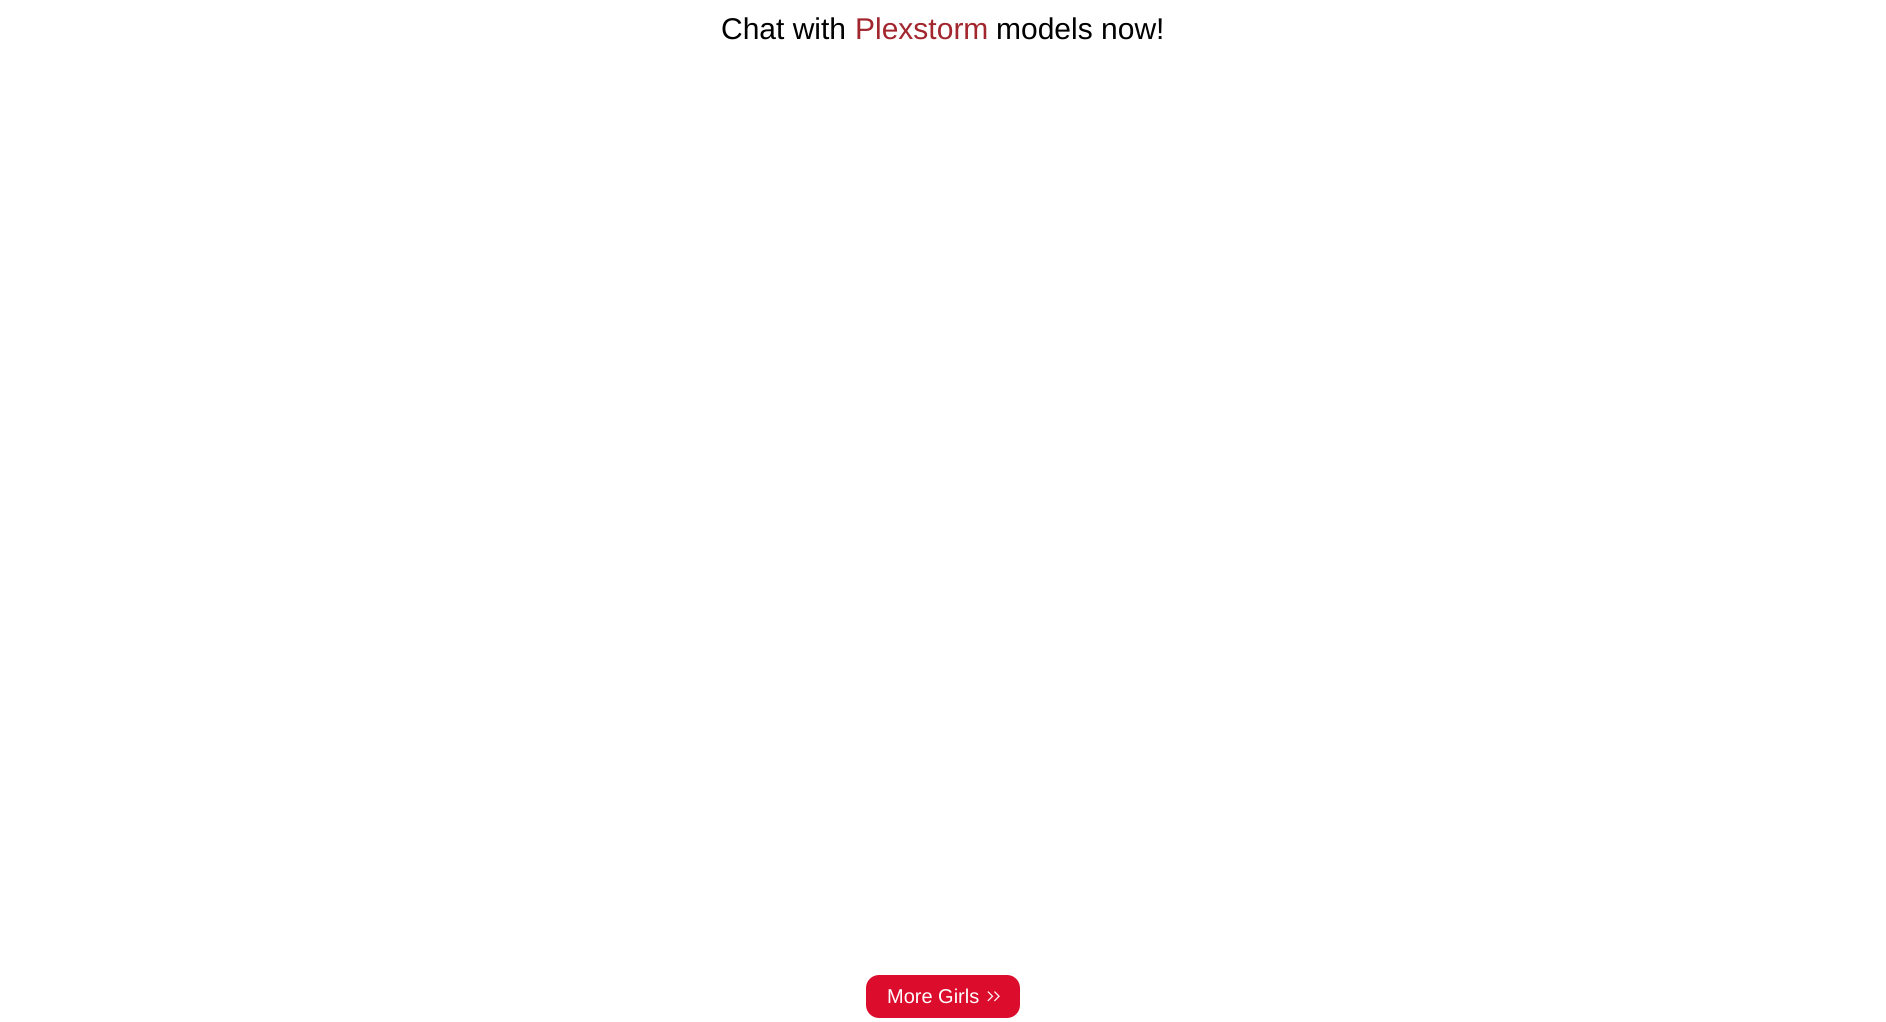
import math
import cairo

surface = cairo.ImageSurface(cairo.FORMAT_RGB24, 1886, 1022)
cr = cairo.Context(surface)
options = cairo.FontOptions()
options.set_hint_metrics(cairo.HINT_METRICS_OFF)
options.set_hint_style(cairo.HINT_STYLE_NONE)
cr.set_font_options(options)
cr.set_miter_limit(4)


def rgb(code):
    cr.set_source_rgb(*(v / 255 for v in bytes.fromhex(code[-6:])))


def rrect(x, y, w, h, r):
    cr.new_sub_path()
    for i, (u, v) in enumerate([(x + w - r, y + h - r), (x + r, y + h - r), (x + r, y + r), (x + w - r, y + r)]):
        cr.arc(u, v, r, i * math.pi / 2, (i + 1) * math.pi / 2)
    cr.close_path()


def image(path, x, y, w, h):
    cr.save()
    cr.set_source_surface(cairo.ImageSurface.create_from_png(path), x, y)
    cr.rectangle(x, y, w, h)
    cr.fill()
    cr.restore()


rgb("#ffffff")
cr.paint()
rgb("#dc0c2c")
rrect(866, 975, 154, 43, 13)
cr.fill()
image("img/1.png", 987, 991, 13, 11)
cr.select_font_face("Liberation Sans")
cr.set_font_size(30)
rgb("#000000")
cr.move_to(721, 39)
cr.show_text("Chat with")
rgb("#a2262e")
cr.move_to(855, 39)
cr.show_text("Plexstorm")
rgb("#000000")
cr.move_to(996, 39)
cr.show_text("models now!")
cr.set_font_size(20)
rgb("#ffffff")
cr.move_to(887, 1003)
cr.show_text("More Girls")
surface.write_to_png("page.png")
